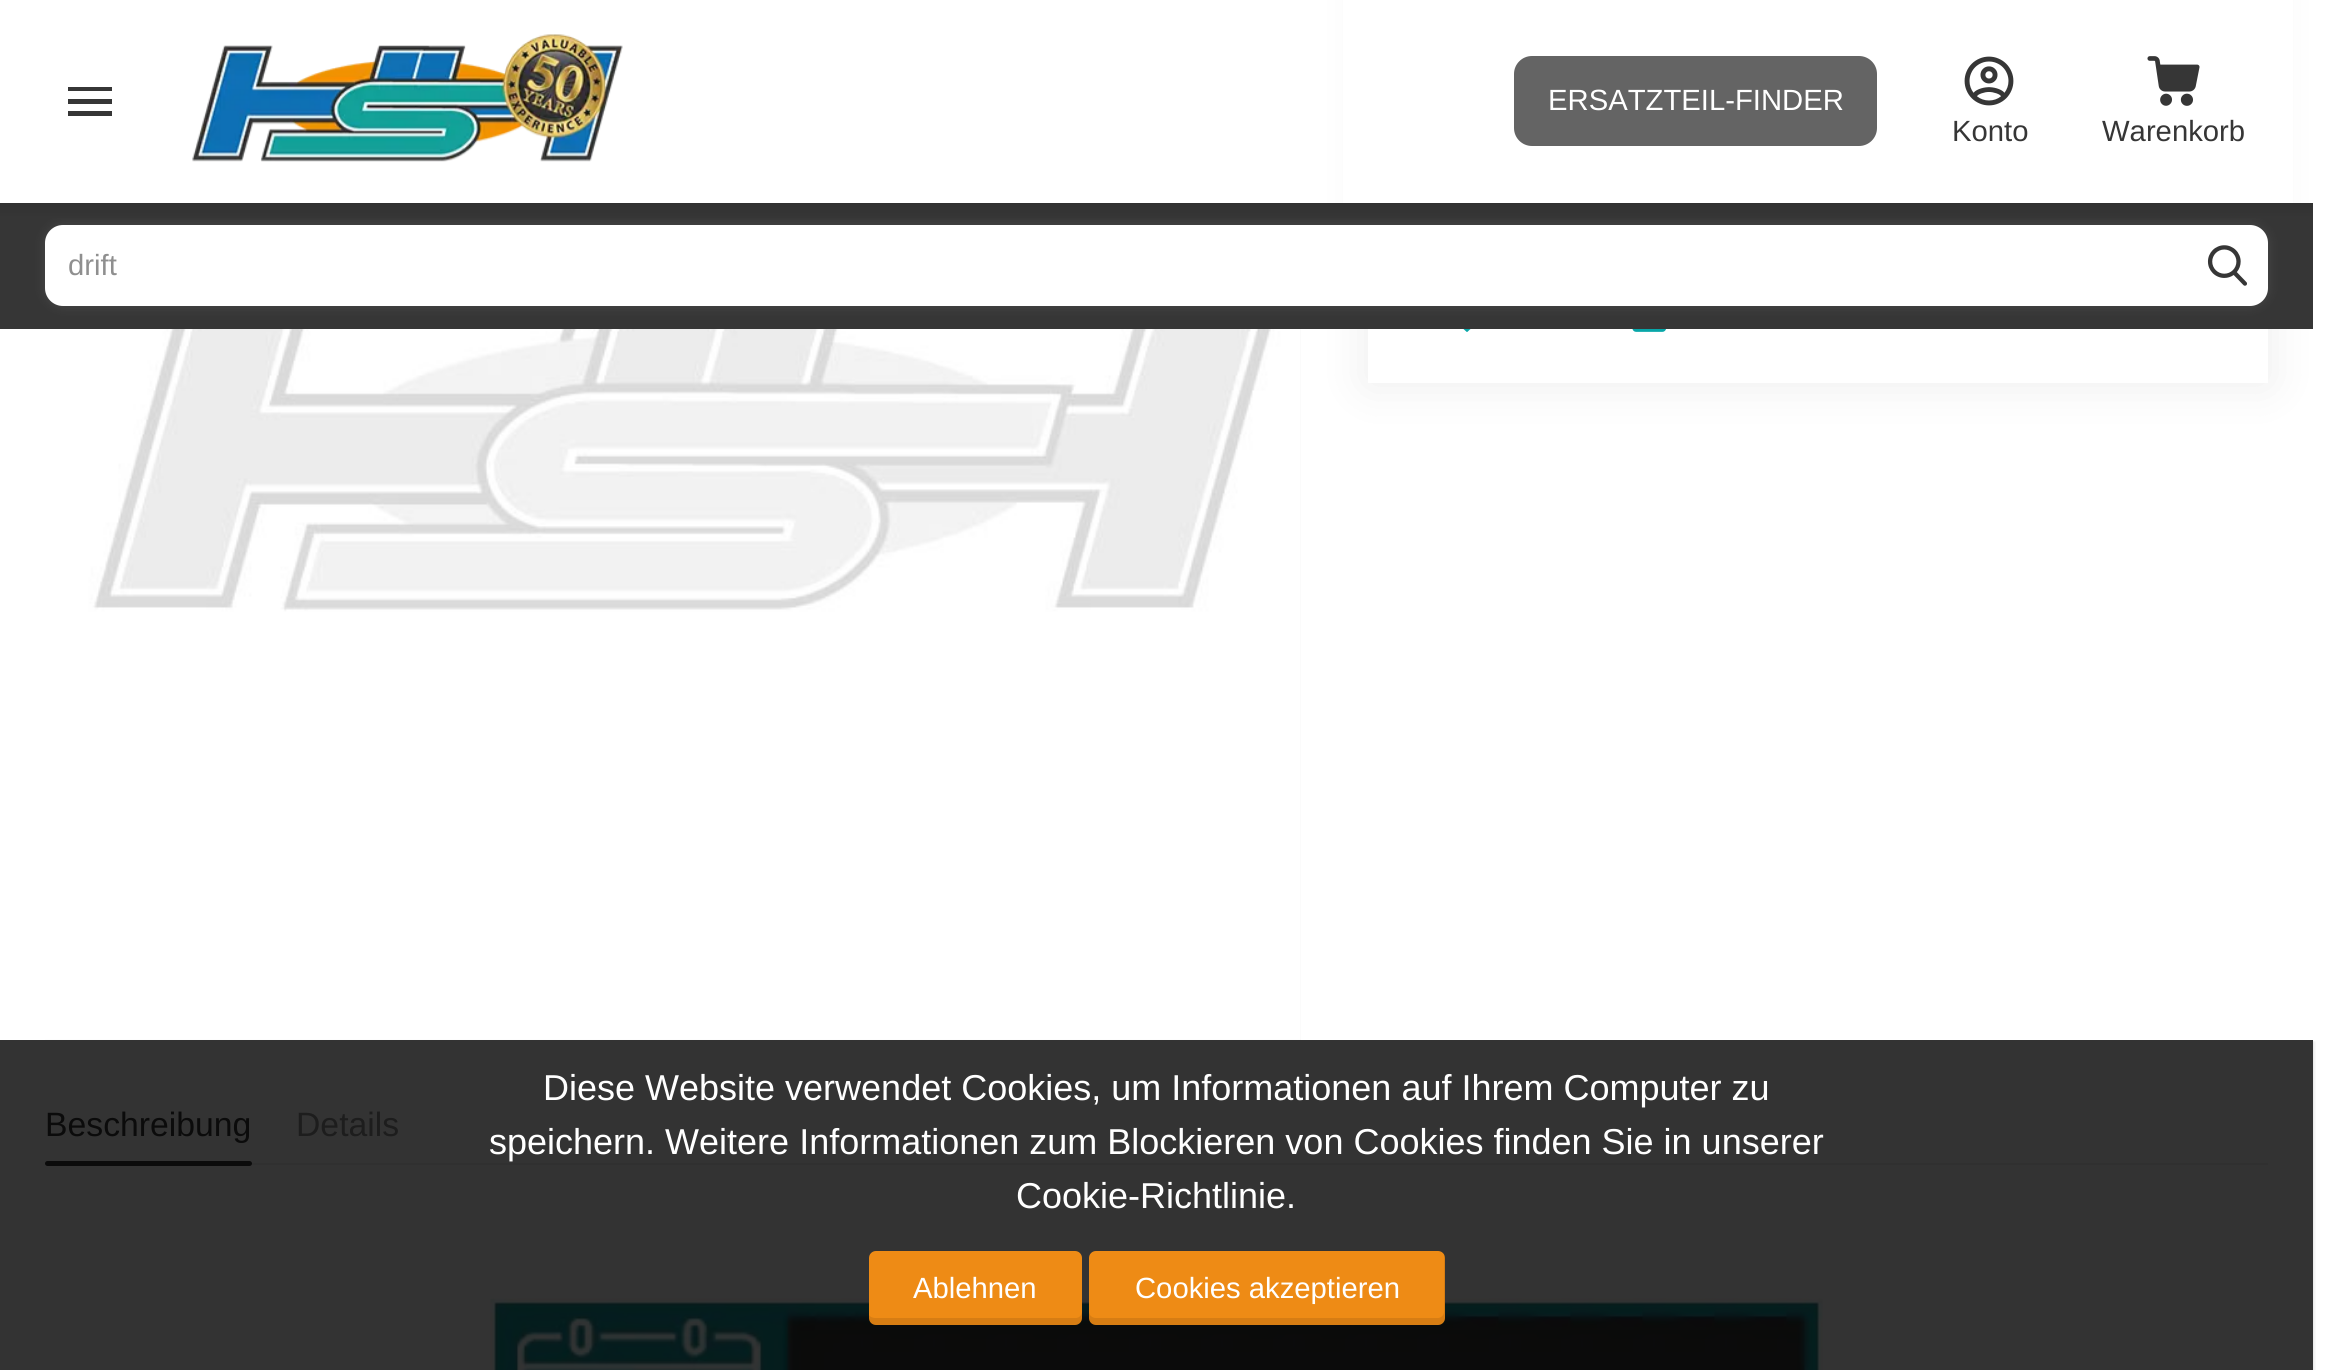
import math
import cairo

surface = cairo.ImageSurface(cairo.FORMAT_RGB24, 2330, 1370)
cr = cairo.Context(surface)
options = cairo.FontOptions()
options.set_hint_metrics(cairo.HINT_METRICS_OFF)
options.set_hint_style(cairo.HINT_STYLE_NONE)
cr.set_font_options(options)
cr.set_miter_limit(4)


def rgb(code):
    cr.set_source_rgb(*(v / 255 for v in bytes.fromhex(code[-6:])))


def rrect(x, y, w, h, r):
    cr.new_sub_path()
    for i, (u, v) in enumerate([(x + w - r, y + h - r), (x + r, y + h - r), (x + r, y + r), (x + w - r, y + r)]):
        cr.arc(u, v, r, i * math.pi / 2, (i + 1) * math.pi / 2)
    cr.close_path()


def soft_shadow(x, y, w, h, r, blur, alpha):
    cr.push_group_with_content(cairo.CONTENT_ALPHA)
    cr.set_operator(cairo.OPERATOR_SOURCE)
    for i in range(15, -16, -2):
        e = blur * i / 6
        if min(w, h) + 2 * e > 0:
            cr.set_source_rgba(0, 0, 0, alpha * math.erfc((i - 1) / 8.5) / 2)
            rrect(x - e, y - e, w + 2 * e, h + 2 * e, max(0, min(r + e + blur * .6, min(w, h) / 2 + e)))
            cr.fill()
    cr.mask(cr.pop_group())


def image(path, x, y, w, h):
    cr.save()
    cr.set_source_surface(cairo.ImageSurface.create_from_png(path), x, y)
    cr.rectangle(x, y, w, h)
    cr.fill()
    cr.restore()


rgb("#ffffff")
cr.paint()
rgb("#333333")
cr.rectangle(0, 1040, 2313, 330)
cr.fill()
rgb("#363636")
soft_shadow(1368, -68, 900, 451, 0, 22.5, 0.1)
rgb("#ffffff")
cr.rectangle(1343, 0, 950, 203)
cr.fill()
rgb("#363636")
cr.new_path()
cr.move_to(68, 116)
cr.line_to(112, 116)
cr.line_to(112, 111)
cr.line_to(68, 111)
cr.close_path()
cr.move_to(68, 104)
cr.line_to(112, 104)
cr.line_to(112, 99)
cr.line_to(68, 99)
cr.close_path()
cr.move_to(68, 87)
cr.line_to(68, 91)
cr.line_to(112, 91)
cr.line_to(112, 87)
cr.close_path()
cr.fill()
image("img/1.png", 192, 34, 431, 128)
rgb("#646464")
rrect(1514, 56, 363, 90, 18)
cr.fill()
image("img/2.png", 1964, 56, 50, 50)
image("img/3.png", 2147, 56, 53, 50)
rgb("#363636")
cr.rectangle(0, 218, 2313, 111)
cr.fill()
rgb("#ffffff")
soft_shadow(45, 225, 2223, 81, 18, 5.5, 0.1)
rgb("#ffffff")
rrect(45, 225, 2223, 81, 18)
cr.fill()
image("img/4.png", 2207, 245, 40, 41)
gradient = cairo.LinearGradient(1157, 202, 1157, 218)
gradient.add_color_stop_rgba(0, 0.192, 0.192, 0.192, 1)
gradient.add_color_stop_rgba(1, 0.212, 0.212, 0.212, 1)
cr.set_source(gradient)
cr.rectangle(0, 203, 2313, 15)
cr.fill()
rgb("#ffffff")
cr.rectangle(1368, 329, 900, 54)
cr.fill()
image("img/5.png", 1463, 329, 8, 3)
image("img/6.png", 1632, 329, 34, 3)
rgb("#f6f6f6")
cr.rectangle(45, 329, 1256, 711)
cr.fill()
image("img/7.png", 45, 329, 1256, 711)
rgb("#303030")
cr.rectangle(45, 1163, 2223, 2)
cr.fill()
rgb("#0b0b0b")
rrect(45, 1161, 207, 5, 2.5)
cr.fill()
image("img/8.png", 490, 1298, 1333, 72)
cr.save()
cr.rectangle(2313, 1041, 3, 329)
cr.clip()
rgb("#000000")
soft_shadow(0, 1042, 2313, 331, 0, 2, 0.2)
cr.restore()
rgb("#ee8b15")
rrect(869, 1251, 213, 74, 7)
cr.fill()
cr.set_source_rgba(0, 0, 0, 0.1)
cr.new_path()
cr.move_to(869, 1315)
cr.line_to(869, 1318)
cr.curve_to(869, 1322, 872, 1325, 876, 1325)
cr.line_to(1075, 1325)
cr.curve_to(1079, 1325, 1082, 1322, 1082, 1318)
cr.line_to(1082, 1312)
cr.curve_to(1082, 1315, 1079, 1318, 1076, 1318)
cr.line_to(875, 1318)
cr.curve_to(873, 1318, 870, 1317, 869, 1315)
cr.close_path()
cr.fill()
rgb("#ee8b15")
rrect(1089, 1251, 356, 74, 7)
cr.fill()
cr.set_source_rgba(0, 0, 0, 0.1)
cr.new_path()
cr.move_to(1089, 1312)
cr.line_to(1089, 1318)
cr.curve_to(1089, 1322, 1092, 1325, 1096, 1325)
cr.line_to(1438, 1325)
cr.curve_to(1442, 1325, 1445, 1322, 1445, 1318)
cr.line_to(1445, 1258)
cr.curve_to(1445, 1257, 1445, 1255, 1444, 1254)
cr.line_to(1444, 1312)
cr.curve_to(1444, 1315, 1441, 1318, 1438, 1318)
cr.line_to(1096, 1318)
cr.curve_to(1092, 1318, 1089, 1315, 1089, 1312)
cr.close_path()
cr.fill()
cr.select_font_face("Liberation Sans")
cr.set_font_size(29.25)
rgb("#ffffff")
cr.move_to(1548, 110)
cr.show_text("ERSATZTEIL-FINDER")
rgb("#363636")
cr.move_to(1952, 141)
cr.show_text("Konto")
cr.move_to(2102, 141)
cr.show_text("Warenkorb")
rgb("#8f8f8f")
cr.move_to(68, 275)
cr.show_text("drift")
cr.set_font_size(33.75)
rgb("#0b0b0b")
cr.move_to(45, 1136)
cr.show_text("Beschreibung")
rgb("#1d1d1d")
cr.move_to(296, 1136)
cr.show_text("Details")
cr.set_font_size(36)
rgb("#ffffff")
for x, y, s in [
    (543, 1100, "Diese Website verwendet Cookies, um Informationen auf Ihrem Computer zu"),
    (489, 1154, "speichern. Weitere Informationen zum Blockieren von Cookies finden Sie in unserer"),
    (1016, 1208, "Cookie-Richtlinie."),
]:
    cr.move_to(x, y)
    cr.show_text(s)
cr.set_font_size(29.25)
cr.move_to(913, 1298)
cr.show_text("Ablehnen")
cr.move_to(1135, 1298)
cr.show_text("Cookies akzeptieren")
surface.write_to_png("page.png")
